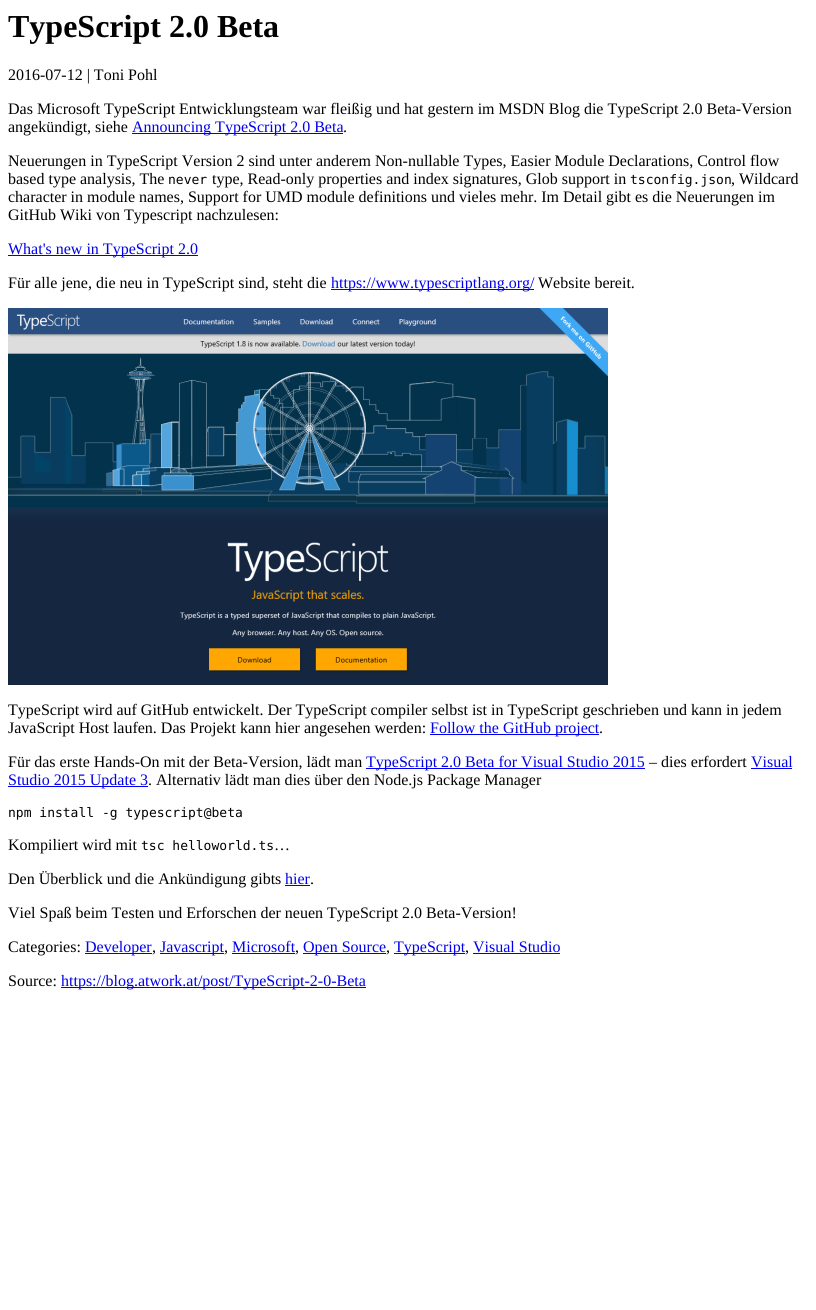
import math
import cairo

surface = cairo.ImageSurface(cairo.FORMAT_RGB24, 816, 1310)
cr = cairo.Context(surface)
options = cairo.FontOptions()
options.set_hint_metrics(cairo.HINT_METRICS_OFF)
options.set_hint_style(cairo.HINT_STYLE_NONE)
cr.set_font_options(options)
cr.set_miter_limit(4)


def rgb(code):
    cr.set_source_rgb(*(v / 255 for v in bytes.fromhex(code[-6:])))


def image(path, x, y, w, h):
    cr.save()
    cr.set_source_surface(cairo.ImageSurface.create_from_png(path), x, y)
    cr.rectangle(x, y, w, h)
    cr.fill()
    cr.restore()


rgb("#ffffff")
cr.paint()
for x, y, w, h, color in [
    (132, 133, 211, 1, "#0000ee"),
    (8, 255, 190, 1, "#0000ee"),
    (331, 289, 203, 1, "#0000ee"),
]:
    rgb(color)
    cr.rectangle(x, y, w, h)
    cr.fill()
image("img/1.png", 8, 308, 600, 377)
for x, y, w, h, color in [
    (430, 734, 169, 1, "#0000ee"),
    (366, 768, 279, 1, "#0000ee"),
    (751, 768, 41, 1, "#0000ee"),
    (8, 786, 140, 1, "#0000ee"),
    (285, 885, 25, 1, "#0000ee"),
    (85, 953, 67, 1, "#0000ee"),
    (160, 953, 64, 1, "#0000ee"),
    (232, 953, 63, 1, "#0000ee"),
    (303, 953, 83, 1, "#0000ee"),
    (394, 953, 71, 1, "#0000ee"),
    (473, 953, 87, 1, "#0000ee"),
    (61, 987, 305, 1, "#0000ee"),
]:
    rgb(color)
    cr.rectangle(x, y, w, h)
    cr.fill()
cr.select_font_face("Liberation Serif", cairo.FONT_SLANT_NORMAL, cairo.FONT_WEIGHT_BOLD)
cr.set_font_size(32)
rgb("#000000")
cr.move_to(8, 37)
cr.show_text("TypeScript 2.0 Beta")
cr.select_font_face("Liberation Serif")
cr.set_font_size(16)
for x, y, s in [
    (8, 80, "2016-07-12 | Toni Pohl"),
    (8, 114, "Das Microsoft TypeScript Entwicklungsteam war fleißig und hat gestern im MSDN Blog die TypeScript 2.0 Beta-Version"),
    (8, 132, "angekündigt, siehe"),
]:
    cr.move_to(x, y)
    cr.show_text(s)
rgb("#0000ee")
cr.move_to(132, 132)
cr.show_text("Announcing TypeScript 2.0 Beta")
rgb("#000000")
for x, y, s in [
    (343, 132, "."),
    (8, 166, "Neuerungen in TypeScript Version 2 sind unter anderem Non-nullable Types, Easier Module Declarations, Control flow"),
    (8, 184, "based type analysis, The"),
]:
    cr.move_to(x, y)
    cr.show_text(s)
cr.select_font_face("DejaVu Sans Mono")
cr.set_font_size(13)
cr.move_to(168, 184)
cr.show_text("never")
cr.select_font_face("Liberation Serif")
cr.set_font_size(16)
cr.move_to(212, 184)
cr.show_text("type, Read-only properties and index signatures, Glob support in")
cr.select_font_face("DejaVu Sans Mono")
cr.set_font_size(13)
cr.move_to(630, 184)
cr.show_text("tsconfig.json")
cr.select_font_face("Liberation Serif")
cr.set_font_size(16)
for x, y, s in [
    (731, 184, ", Wildcard"),
    (8, 202, "character in module names, Support for UMD module definitions und vieles mehr. Im Detail gibt es die Neuerungen im"),
    (8, 220, "GitHub Wiki von Typescript nachzulesen:"),
]:
    cr.move_to(x, y)
    cr.show_text(s)
rgb("#0000ee")
cr.move_to(8, 254)
cr.show_text("What's new in TypeScript 2.0")
rgb("#000000")
cr.move_to(8, 288)
cr.show_text("Für alle jene, die neu in TypeScript sind, steht die")
rgb("#0000ee")
cr.move_to(331, 288)
cr.show_text("https://www.typescriptlang.org/")
rgb("#000000")
for x, y, s in [
    (538, 288, "Website bereit."),
    (8, 715, "TypeScript wird auf GitHub entwickelt. Der TypeScript compiler selbst ist in TypeScript geschrieben und kann in jedem"),
    (8, 733, "JavaScript Host laufen. Das Projekt kann hier angesehen werden:"),
]:
    cr.move_to(x, y)
    cr.show_text(s)
rgb("#0000ee")
cr.move_to(430, 733)
cr.show_text("Follow the GitHub project")
rgb("#000000")
cr.move_to(599, 733)
cr.show_text(".")
cr.move_to(8, 767)
cr.show_text("Für das erste Hands-On mit der Beta-Version, lädt man")
rgb("#0000ee")
cr.move_to(366, 767)
cr.show_text("TypeScript 2.0 Beta for Visual Studio 2015")
rgb("#000000")
cr.move_to(649, 767)
cr.show_text("– dies erfordert")
rgb("#0000ee")
cr.move_to(751, 767)
cr.show_text("Visual")
cr.move_to(8, 785)
cr.show_text("Studio 2015 Update 3")
rgb("#000000")
cr.move_to(148, 785)
cr.show_text(". Alternativ lädt man dies über den Node.js Package Manager")
cr.select_font_face("DejaVu Sans Mono")
cr.set_font_size(13)
cr.move_to(8, 817)
cr.show_text("npm install -g typescript@beta")
cr.select_font_face("Liberation Serif")
cr.set_font_size(16)
cr.move_to(8, 850)
cr.show_text("Kompiliert wird mit")
cr.select_font_face("DejaVu Sans Mono")
cr.set_font_size(13)
cr.move_to(141, 850)
cr.show_text("tsc helloworld.ts")
cr.select_font_face("Liberation Serif")
cr.set_font_size(16)
cr.move_to(274, 850)
cr.show_text("…")
cr.move_to(8, 884)
cr.show_text("Den Überblick und die Ankündigung gibts")
rgb("#0000ee")
cr.move_to(285, 884)
cr.show_text("hier")
rgb("#000000")
for x, y, s in [
    (310, 884, "."),
    (8, 918, "Viel Spaß beim Testen und Erforschen der neuen TypeScript 2.0 Beta-Version!"),
    (8, 952, "Categories:"),
]:
    cr.move_to(x, y)
    cr.show_text(s)
rgb("#0000ee")
cr.move_to(85, 952)
cr.show_text("Developer")
rgb("#000000")
cr.move_to(152, 952)
cr.show_text(",")
rgb("#0000ee")
cr.move_to(160, 952)
cr.show_text("Javascript")
rgb("#000000")
cr.move_to(224, 952)
cr.show_text(",")
rgb("#0000ee")
cr.move_to(232, 952)
cr.show_text("Microsoft")
rgb("#000000")
cr.move_to(295, 952)
cr.show_text(",")
rgb("#0000ee")
cr.move_to(303, 952)
cr.show_text("Open Source")
rgb("#000000")
cr.move_to(386, 952)
cr.show_text(",")
rgb("#0000ee")
cr.move_to(394, 952)
cr.show_text("TypeScript")
rgb("#000000")
cr.move_to(465, 952)
cr.show_text(",")
rgb("#0000ee")
cr.move_to(473, 952)
cr.show_text("Visual Studio")
rgb("#000000")
cr.move_to(8, 986)
cr.show_text("Source:")
rgb("#0000ee")
cr.move_to(61, 986)
cr.show_text("https://blog.atwork.at/post/TypeScript-2-0-Beta")
surface.write_to_png("page.png")
